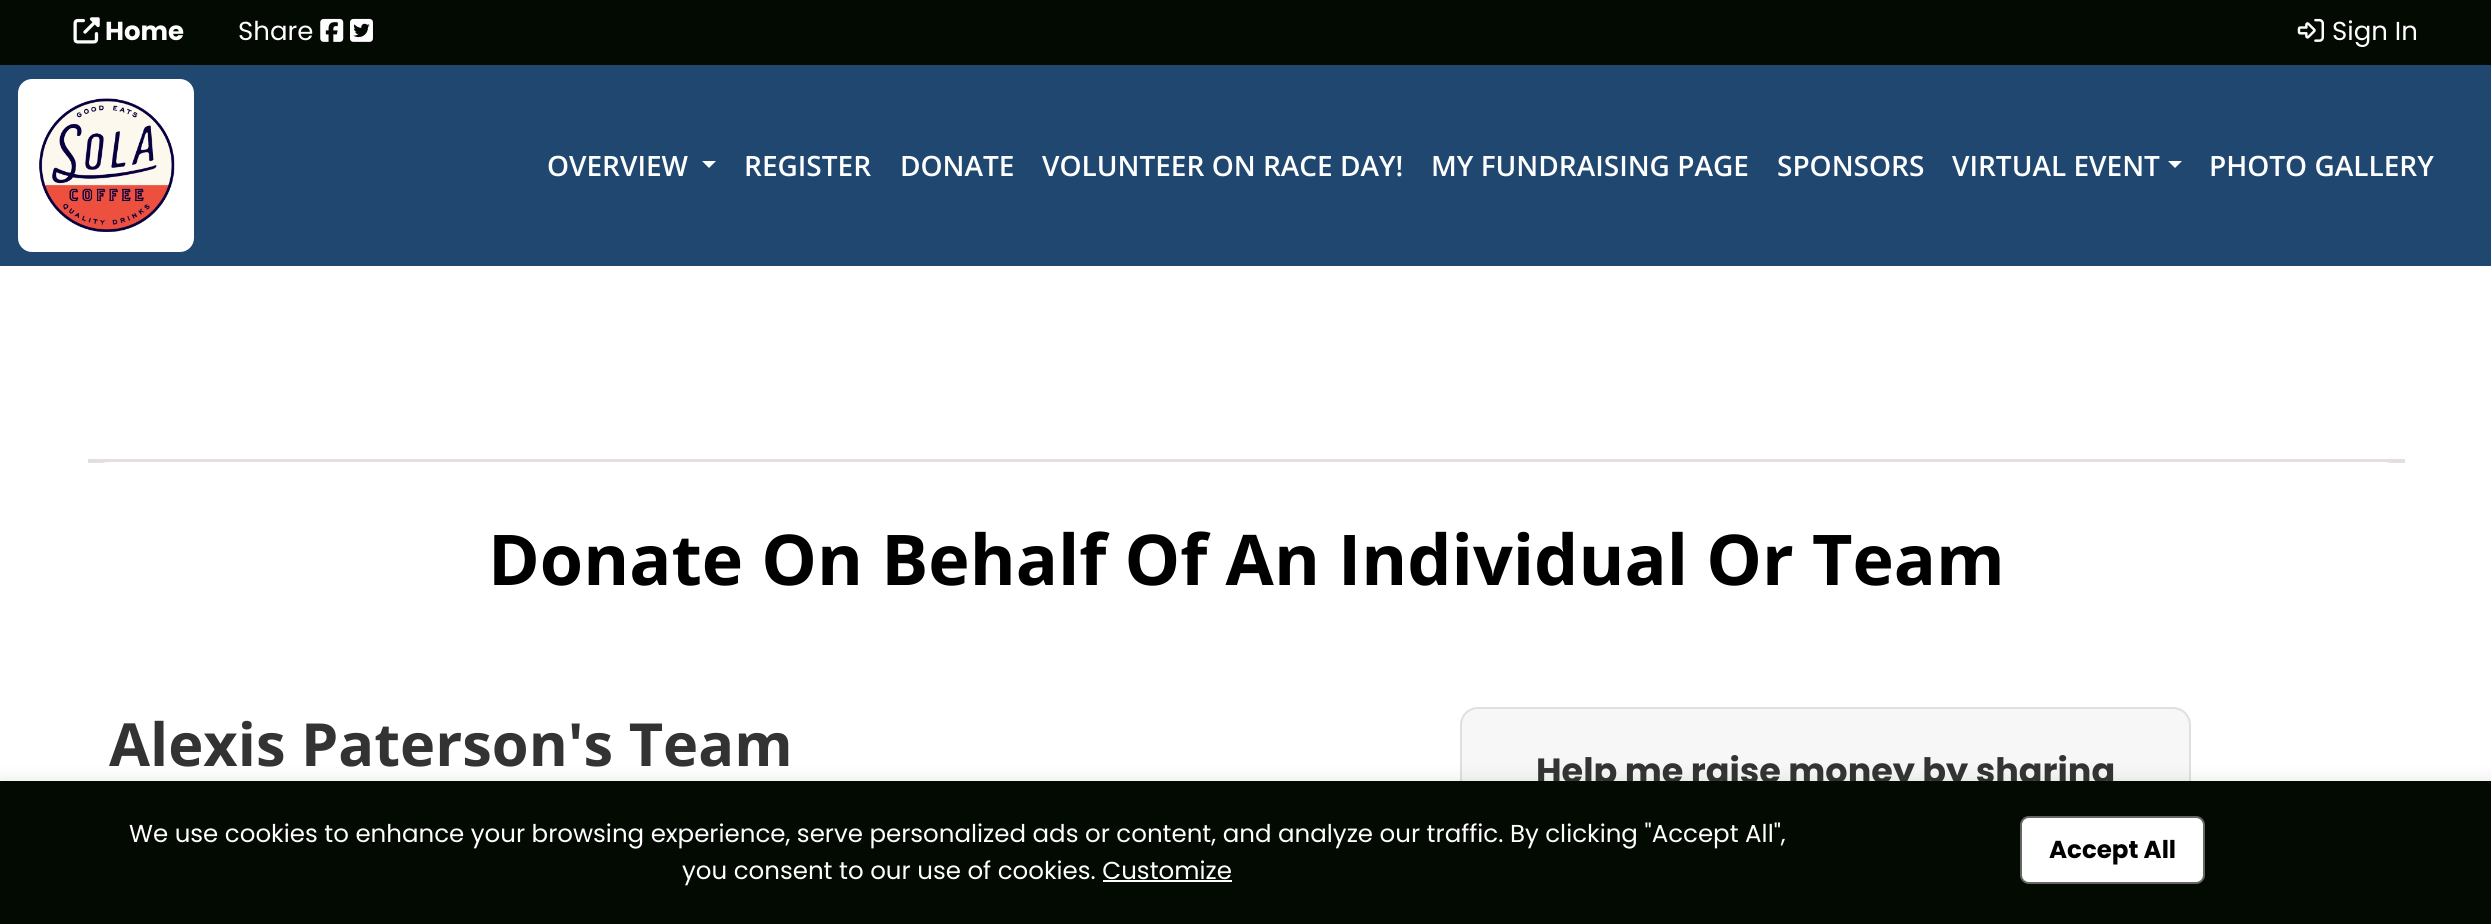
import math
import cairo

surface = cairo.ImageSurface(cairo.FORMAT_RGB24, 2491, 924)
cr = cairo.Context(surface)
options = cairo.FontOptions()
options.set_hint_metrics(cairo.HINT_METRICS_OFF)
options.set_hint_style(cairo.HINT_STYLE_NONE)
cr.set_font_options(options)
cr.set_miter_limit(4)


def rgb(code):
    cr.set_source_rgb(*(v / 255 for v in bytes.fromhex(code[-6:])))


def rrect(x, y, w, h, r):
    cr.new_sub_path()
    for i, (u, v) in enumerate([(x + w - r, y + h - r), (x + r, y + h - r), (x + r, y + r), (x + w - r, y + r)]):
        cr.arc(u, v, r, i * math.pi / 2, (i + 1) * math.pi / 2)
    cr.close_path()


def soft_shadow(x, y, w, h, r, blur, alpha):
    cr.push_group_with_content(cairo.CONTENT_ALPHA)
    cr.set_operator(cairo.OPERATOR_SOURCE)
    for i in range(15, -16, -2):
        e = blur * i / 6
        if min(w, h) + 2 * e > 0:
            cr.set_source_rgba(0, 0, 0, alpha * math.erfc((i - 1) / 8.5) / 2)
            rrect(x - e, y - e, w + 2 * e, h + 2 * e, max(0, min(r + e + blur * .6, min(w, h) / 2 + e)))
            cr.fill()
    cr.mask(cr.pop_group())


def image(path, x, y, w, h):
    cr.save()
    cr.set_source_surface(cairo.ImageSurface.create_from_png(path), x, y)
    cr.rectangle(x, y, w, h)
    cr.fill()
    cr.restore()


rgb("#ffffff")
cr.paint()
rgb("#030a02")
cr.rectangle(0, 0, 2491, 65)
cr.fill()
image("img/1.png", 73, 17, 27, 27)
image("img/2.png", 320, 18, 24, 24)
image("img/3.png", 350, 18, 23, 24)
image("img/4.png", 2297, 18, 27, 24)
rgb("#204770")
cr.rectangle(0, 65, 2491, 201)
cr.fill()
rgb("#ffffff")
rrect(18, 79, 176, 173, 14)
cr.fill()
image("img/5.png", 39, 98, 136, 134)
cr.new_path()
cr.move_to(702, 161)
cr.line_to(716, 161)
cr.line_to(709, 168)
cr.close_path()
cr.fill()
cr.new_path()
cr.move_to(2168, 161)
cr.line_to(2182, 161)
cr.line_to(2175, 168)
cr.close_path()
cr.fill()
rgb("#e5dede")
cr.rectangle(88, 459, 2317, 4)
cr.fill()
rgb("#ffffff")
rrect(88, 462, 2317, 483, 21)
cr.fill()
rgb("#f7f7f7")
rrect(1461, 708, 729, 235, 17)
cr.fill_preserve()
rgb("#dfdfdf")
cr.stroke()
rgb("#000000")
soft_shadow(0, 781, 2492, 143, 0, 9, 0.1)
cr.select_font_face("Poppins", cairo.FONT_SLANT_NORMAL, cairo.FONT_WEIGHT_BOLD)
cr.set_font_size(26)
rgb("#ffffff")
cr.move_to(105, 40)
cr.show_text("Home")
cr.select_font_face("Poppins")
cr.move_to(238, 40)
cr.show_text("Share")
cr.move_to(2332, 40)
cr.show_text("Sign In")
cr.select_font_face("Open Sans SemiBold")
cr.set_font_size(28)
for x, y, s in [
    (547, 176, "OVERVIEW"),
    (744, 176, "REGISTER"),
    (900, 176, "DONATE"),
    (1042, 176, "VOLUNTEER ON RACE DAY!"),
    (1431, 176, "MY FUNDRAISING PAGE"),
    (1777, 176, "SPONSORS"),
    (1952, 176, "VIRTUAL EVENT"),
    (2209, 176, "PHOTO GALLERY"),
]:
    cr.move_to(x, y)
    cr.show_text(s)
cr.select_font_face("Open Sans", cairo.FONT_SLANT_NORMAL, cairo.FONT_WEIGHT_BOLD)
cr.set_font_size(70)
rgb("#000000")
cr.move_to(488, 585)
cr.show_text("Donate On Behalf Of An Individual Or Team")
cr.set_font_size(59.5)
rgb("#333333")
cr.move_to(109, 766)
cr.show_text("Alexis Paterson's Team")
cr.select_font_face("Poppins", cairo.FONT_SLANT_NORMAL, cairo.FONT_WEIGHT_BOLD)
cr.set_font_size(35)
cr.move_to(1536, 783)
cr.show_text("Help me raise money by sharing")
rgb("#030a02")
cr.rectangle(0, 781, 2491, 143)
cr.fill()
cr.select_font_face("Poppins")
cr.set_font_size(24.5)
rgb("#ffffff")
cr.move_to(129, 842)
cr.show_text("We use cookies to enhance your browsing experience, serve personalized ads or content, and analyze our traffic. By clicking \"Accept All\",")
cr.move_to(682, 879)
cr.show_text("you consent to our use of cookies. Customize")
cr.rectangle(1103, 880, 129, 2)
cr.fill()
rrect(2021, 817, 183, 66, 8)
cr.fill_preserve()
rgb("#666666")
cr.stroke()
cr.select_font_face("Poppins", cairo.FONT_SLANT_NORMAL, cairo.FONT_WEIGHT_BOLD)
rgb("#000000")
cr.move_to(2049, 858)
cr.show_text("Accept All")
surface.write_to_png("page.png")
